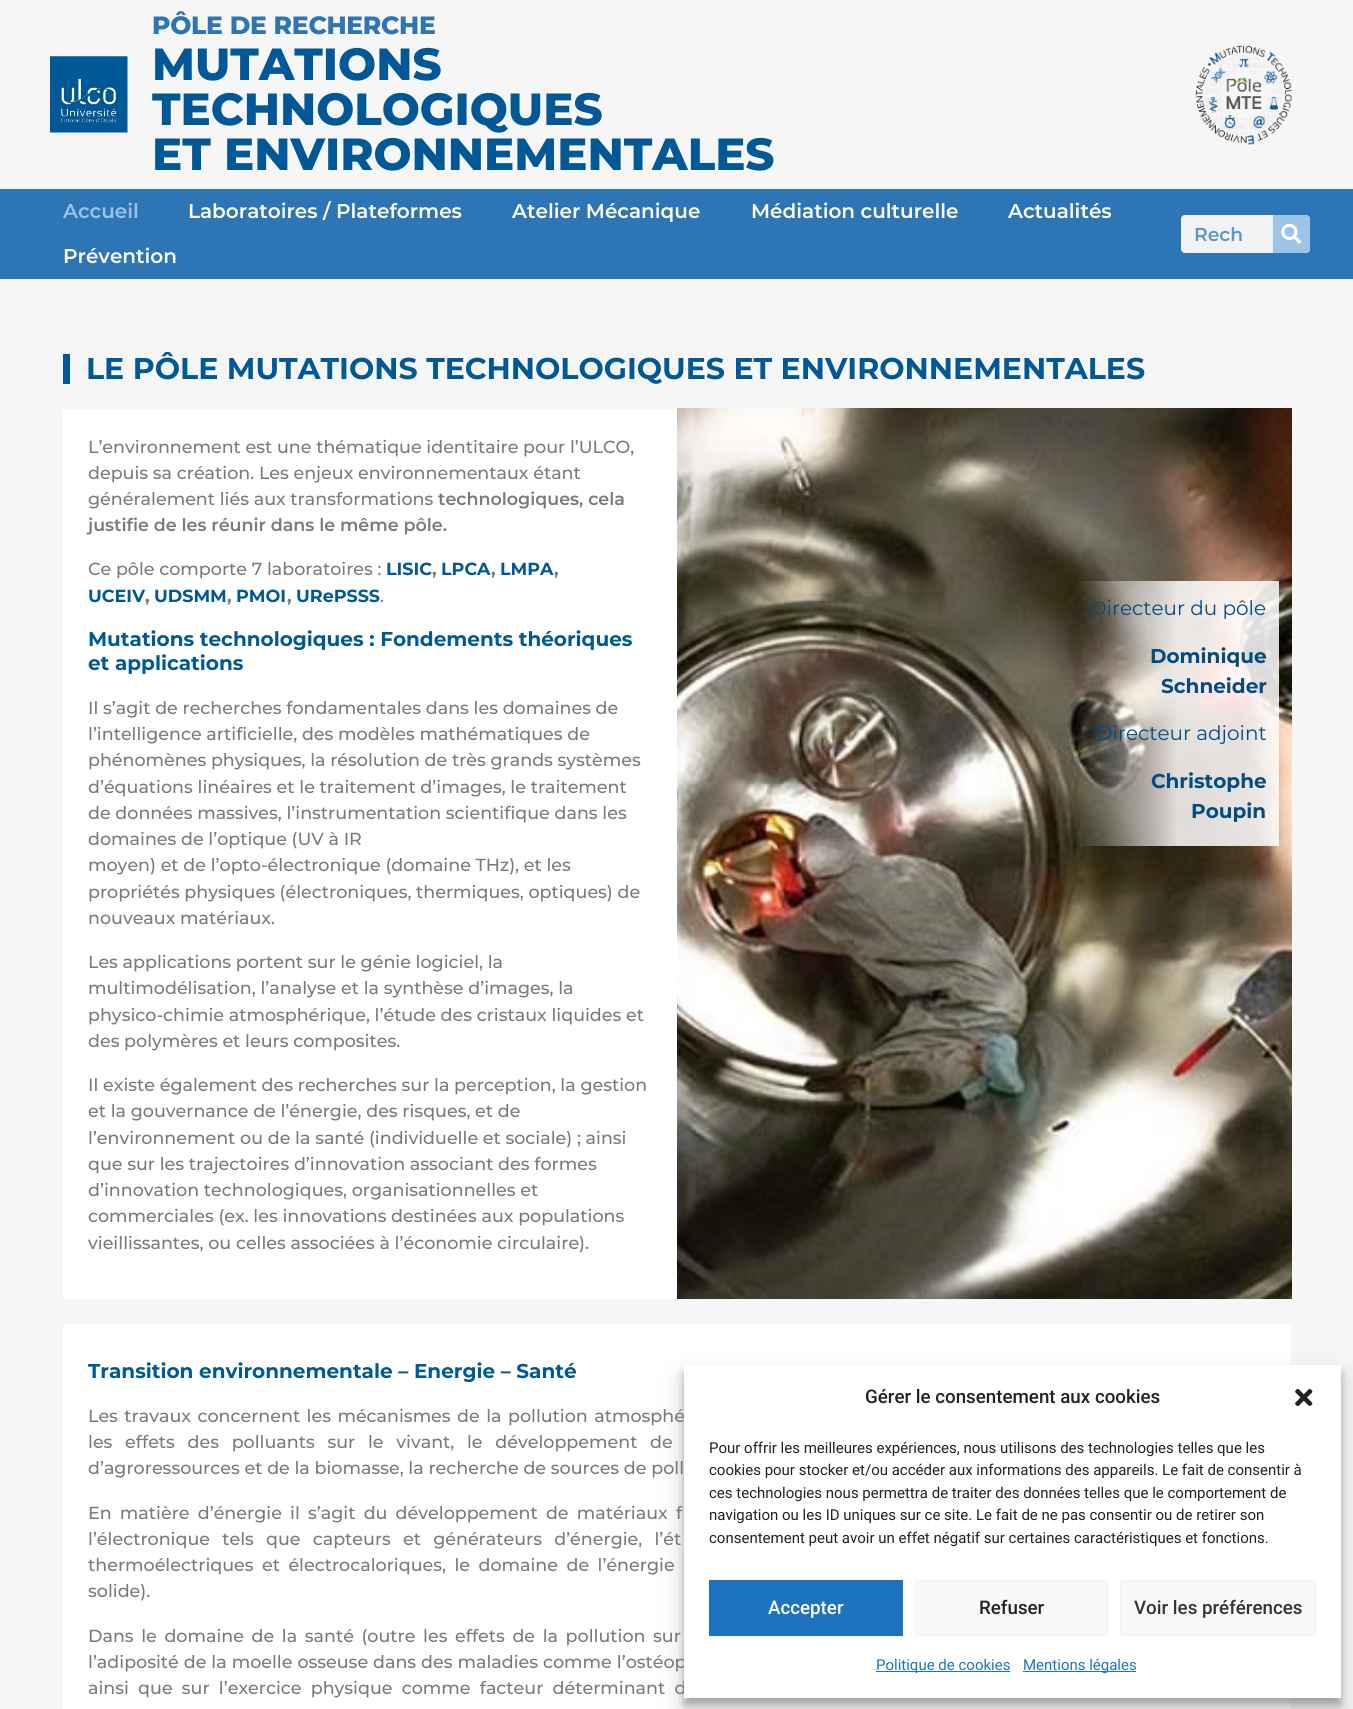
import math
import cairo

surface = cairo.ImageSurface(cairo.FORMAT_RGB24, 1353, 1709)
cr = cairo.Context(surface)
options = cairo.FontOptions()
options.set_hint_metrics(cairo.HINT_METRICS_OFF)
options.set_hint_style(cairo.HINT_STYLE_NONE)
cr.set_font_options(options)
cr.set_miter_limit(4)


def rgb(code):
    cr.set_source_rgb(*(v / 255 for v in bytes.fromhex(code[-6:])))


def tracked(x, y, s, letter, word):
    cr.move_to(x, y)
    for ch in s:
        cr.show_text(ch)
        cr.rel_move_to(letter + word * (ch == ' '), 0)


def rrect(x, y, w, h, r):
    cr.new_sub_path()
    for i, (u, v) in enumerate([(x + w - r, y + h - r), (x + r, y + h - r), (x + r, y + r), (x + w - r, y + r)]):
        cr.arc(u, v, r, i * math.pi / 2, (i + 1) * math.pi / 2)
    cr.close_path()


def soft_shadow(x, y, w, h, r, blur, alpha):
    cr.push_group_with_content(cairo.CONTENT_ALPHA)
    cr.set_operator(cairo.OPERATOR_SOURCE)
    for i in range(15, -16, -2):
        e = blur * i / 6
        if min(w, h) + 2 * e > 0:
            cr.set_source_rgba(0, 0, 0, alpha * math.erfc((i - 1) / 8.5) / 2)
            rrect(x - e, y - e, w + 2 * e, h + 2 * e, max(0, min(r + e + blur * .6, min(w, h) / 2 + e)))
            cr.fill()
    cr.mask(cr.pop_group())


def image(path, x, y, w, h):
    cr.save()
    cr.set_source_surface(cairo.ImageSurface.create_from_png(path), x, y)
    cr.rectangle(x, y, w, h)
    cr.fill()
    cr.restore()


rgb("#f6f6f6")
cr.paint()
image("img/1.png", 50, 56, 78, 77)
image("img/2.png", 1195, 45, 98, 100)
rgb("#2e75b6")
cr.rectangle(0, 189, 1353, 90)
cr.fill()
rgb("#f1f2f3")
rrect(1181, 215, 129, 38, 4)
cr.fill()
rgb("#9dc3e6")
cr.new_path()
cr.move_to(1273, 215)
cr.line_to(1306, 215)
cr.curve_to(1308, 215, 1310, 217, 1310, 219)
cr.line_to(1310, 249)
cr.curve_to(1310, 251, 1308, 253, 1306, 253)
cr.line_to(1273, 253)
cr.close_path()
cr.fill()
image("img/3.png", 1281, 223, 21, 21)
rgb("#005897")
cr.rectangle(63, 354, 7, 30)
cr.fill()
rgb("#ffffff")
cr.rectangle(63, 409, 614, 890)
cr.fill()
image("img/4.png", 677, 408, 615, 891)
cr.rectangle(63, 1324, 1228, 385)
cr.fill()
rgb("#000000")
soft_shadow(684, 1373, 657, 332, 0, 4, 0.23)
soft_shadow(684, 1378, 657, 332, 0, 12.5, 0.19)
cr.select_font_face("Montserrat ExtraBold")
cr.set_font_size(25)
rgb("#2e75b6")
tracked(152, 34, "PÔLE DE RECHERCHE", -0.25, 0)
cr.set_font_size(45)
rgb("#005897")
for x, y, s in [
    (152, 80, "MUTATIONS"),
    (152, 125, "TECHNOLOGIQUES"),
    (152, 170, "ET ENVIRONNEMENTALES"),
]:
    cr.move_to(x, y)
    cr.show_text(s)
cr.select_font_face("Montserrat SemiBold")
cr.set_font_size(20)
rgb("#9dc3e6")
cr.move_to(63, 218)
cr.show_text("Accueil")
rgb("#ffffff")
for x, y, s in [
    (188, 218, "Laboratoires / Plateformes"),
    (512, 218, "Atelier Mécanique"),
    (751, 218, "Médiation culturelle"),
    (1008, 218, "Actualités"),
    (63, 263, "Prévention"),
]:
    cr.move_to(x, y)
    cr.show_text(s)
cr.set_font_size(18.75)
rgb("#6096bc")
cr.move_to(1194, 241)
cr.show_text("Rech")
cr.select_font_face("Montserrat", cairo.FONT_SLANT_NORMAL, cairo.FONT_WEIGHT_BOLD)
cr.set_font_size(30)
rgb("#005897")
cr.move_to(86, 379)
cr.show_text("LE PÔLE MUTATIONS TECHNOLOGIQUES ET ENVIRONNEMENTALES")
cr.select_font_face("Montserrat Medium")
cr.set_font_size(17.5)
rgb("#7a7a7a")
for x, y, s in [
    (88, 453, "L’environnement est une thématique identitaire pour l’ULCO,"),
    (88, 479, "depuis sa création. Les enjeux environnementaux étant"),
    (88, 505, "généralement liés aux transformations"),
]:
    cr.move_to(x, y)
    cr.show_text(s)
cr.select_font_face("Montserrat SemiBold")
cr.move_to(438, 505)
cr.show_text("technologiques, cela")
cr.move_to(88, 531)
cr.show_text("justifie de les réunir dans le même pôle.")
cr.select_font_face("Montserrat Medium")
cr.move_to(88, 575)
cr.show_text("Ce pôle comporte 7 laboratoires :")
cr.select_font_face("Montserrat", cairo.FONT_SLANT_NORMAL, cairo.FONT_WEIGHT_BOLD)
rgb("#005897")
cr.move_to(386, 575)
cr.show_text("LISIC")
rgb("#7a7a7a")
cr.move_to(432, 575)
cr.show_text(",")
rgb("#005897")
cr.move_to(441, 575)
cr.show_text("LPCA")
rgb("#7a7a7a")
cr.move_to(491, 575)
cr.show_text(",")
rgb("#005897")
cr.move_to(500, 575)
cr.show_text("LMPA")
rgb("#7a7a7a")
cr.move_to(554, 575)
cr.show_text(",")
rgb("#005897")
cr.move_to(88, 602)
cr.show_text("UCEIV")
rgb("#7a7a7a")
cr.move_to(145, 602)
cr.show_text(",")
rgb("#005897")
cr.move_to(154, 602)
cr.show_text("UDSMM")
rgb("#7a7a7a")
cr.move_to(227, 602)
cr.show_text(",")
rgb("#005897")
cr.move_to(236, 602)
cr.show_text("PMOI")
rgb("#7a7a7a")
cr.move_to(287, 602)
cr.show_text(",")
rgb("#005897")
cr.move_to(296, 602)
cr.show_text("URePSSS")
cr.select_font_face("Montserrat Medium")
rgb("#7a7a7a")
cr.move_to(380, 602)
cr.show_text(".")
cr.select_font_face("Montserrat", cairo.FONT_SLANT_NORMAL, cairo.FONT_WEIGHT_BOLD)
cr.set_font_size(20)
rgb("#005897")
cr.move_to(88, 646)
cr.show_text("Mutations technologiques : Fondements théoriques")
cr.move_to(88, 670)
cr.show_text("et applications")
cr.select_font_face("Montserrat Medium")
cr.set_font_size(17.5)
rgb("#7a7a7a")
for x, y, s in [
    (88, 714, "Il s’agit de recherches fondamentales dans les domaines de"),
    (88, 740, "l’intelligence artificielle, des modèles mathématiques de"),
    (88, 766, "phénomènes physiques, la résolution de très grands systèmes"),
    (88, 793, "d’équations linéaires et le traitement d’images, le traitement"),
    (88, 819, "de données massives, l’instrumentation scientifique dans les"),
    (88, 845, "domaines de l’optique (UV à IR"),
    (88, 871, "moyen) et de l’opto-électronique (domaine THz), et les"),
    (88, 898, "propriétés physiques (électroniques, thermiques, optiques) de"),
    (88, 924, "nouveaux matériaux."),
    (88, 968, "Les applications portent sur le génie logiciel, la"),
    (88, 994, "multimodélisation, l’analyse et la synthèse d’images, la"),
    (88, 1021, "physico-chimie atmosphérique, l’étude des cristaux liquides et"),
    (88, 1047, "des polymères et leurs composites."),
    (88, 1091, "Il existe également des recherches sur la perception, la gestion"),
    (88, 1117, "et la gouvernance de l’énergie, des risques, et de"),
    (88, 1144, "l’environnement ou de la santé (individuelle et sociale) ; ainsi"),
    (88, 1170, "que sur les trajectoires d’innovation associant des formes"),
    (88, 1196, "d’innovation technologiques, organisationnelles et"),
    (88, 1222, "commerciales (ex. les innovations destinées aux populations"),
    (88, 1249, "vieillissantes, ou celles associées à l’économie circulaire)."),
]:
    cr.move_to(x, y)
    cr.show_text(s)
cr.select_font_face("Montserrat")
cr.set_font_size(20)
rgb("#024c81")
cr.move_to(1090, 615)
cr.show_text("Directeur du pôle")
cr.select_font_face("Montserrat", cairo.FONT_SLANT_NORMAL, cairo.FONT_WEIGHT_BOLD)
cr.move_to(1150, 663)
cr.show_text("Dominique")
cr.move_to(1161, 693)
cr.show_text("Schneider")
cr.select_font_face("Montserrat")
cr.move_to(1096, 740)
cr.show_text("Directeur adjoint")
cr.select_font_face("Montserrat", cairo.FONT_SLANT_NORMAL, cairo.FONT_WEIGHT_BOLD)
cr.move_to(1151, 788)
cr.show_text("Christophe")
cr.move_to(1191, 818)
cr.show_text("Poupin")
rgb("#005897")
cr.move_to(88, 1378)
cr.show_text("Transition environnementale – Energie – Santé")
cr.select_font_face("Montserrat Medium")
cr.set_font_size(17.5)
rgb("#7a7a7a")
tracked(88, 1422, "Les travaux concernent les mécanismes de la pollution atmosphé", 0, 1.75)
tracked(88, 1448, "les effets des polluants sur le vivant, le développement de", 0, 8)
cr.move_to(88, 1474)
cr.show_text("d’agroressources et de la biomasse, la recherche de sources de poll")
tracked(88, 1519, "En matière d’énergie il s’agit du développement de matériaux f", 0, 3.5)
tracked(88, 1545, "l’électronique tels que capteurs et générateurs d’énergie, l’ét", 0, 7.5)
tracked(88, 1571, "thermoélectriques et électrocaloriques, le domaine de l’énergie", 0, 3.75)
cr.move_to(88, 1597)
cr.show_text("solide).")
tracked(88, 1642, "Dans le domaine de la santé (outre les effets de la pollution sur", 0, 2.9)
tracked(88, 1668, "l’adiposité de la moelle osseuse dans des maladies comme l’ostéop", 0, 0.25)
tracked(88, 1694, "ainsi que sur l’exercice physique comme facteur déterminant d", 0, 4.5)
rgb("#ffffff")
cr.rectangle(684, 1365, 657, 333)
cr.fill()
cr.select_font_face("Roboto Medium")
cr.set_font_size(18.75)
rgb("#222222")
cr.move_to(865, 1403)
cr.show_text("Gérer le consentement aux cookies")
image("img/5.png", 1295, 1388, 18, 19)
cr.select_font_face("Roboto")
cr.set_font_size(15)
for x, y, s in [
    (709, 1453, "Pour offrir les meilleures expériences, nous utilisons des technologies telles que les"),
    (709, 1475, "cookies pour stocker et/ou accéder aux informations des appareils. Le fait de consentir à"),
    (709, 1498, "ces technologies nous permettra de traiter des données telles que le comportement de"),
    (709, 1520, "navigation ou les ID uniques sur ce site. Le fait de ne pas consentir ou de retirer son"),
    (709, 1543, "consentement peut avoir un effet négatif sur certaines caractéristiques et fonctions."),
]:
    cr.move_to(x, y)
    cr.show_text(s)
rgb("#1e73be")
cr.rectangle(709, 1580, 194, 56)
cr.fill()
cr.select_font_face("Roboto Medium")
cr.set_font_size(18.75)
rgb("#ffffff")
cr.move_to(768, 1614)
cr.show_text("Accepter")
rgb("#f9f9f9")
cr.rectangle(915.5, 1580.5, 192, 55)
cr.fill_preserve()
rgb("#f2f2f2")
cr.set_line_width(1)
cr.stroke()
rgb("#222222")
cr.move_to(979, 1614)
cr.show_text("Refuser")
rgb("#f9f9f9")
cr.rectangle(1120.5, 1580.5, 195, 55)
cr.fill_preserve()
rgb("#f2f2f2")
cr.stroke()
rgb("#333333")
cr.move_to(1134, 1614)
cr.show_text("Voir les préférences")
rgb("#1e73be")
cr.rectangle(876, 1671, 134, 1)
cr.fill()
cr.select_font_face("Roboto")
cr.set_font_size(15)
cr.move_to(876, 1670)
cr.show_text("Politique de cookies")
cr.rectangle(1023, 1671, 113, 1)
cr.fill()
cr.move_to(1023, 1670)
cr.show_text("Mentions légales")
surface.write_to_png("page.png")
